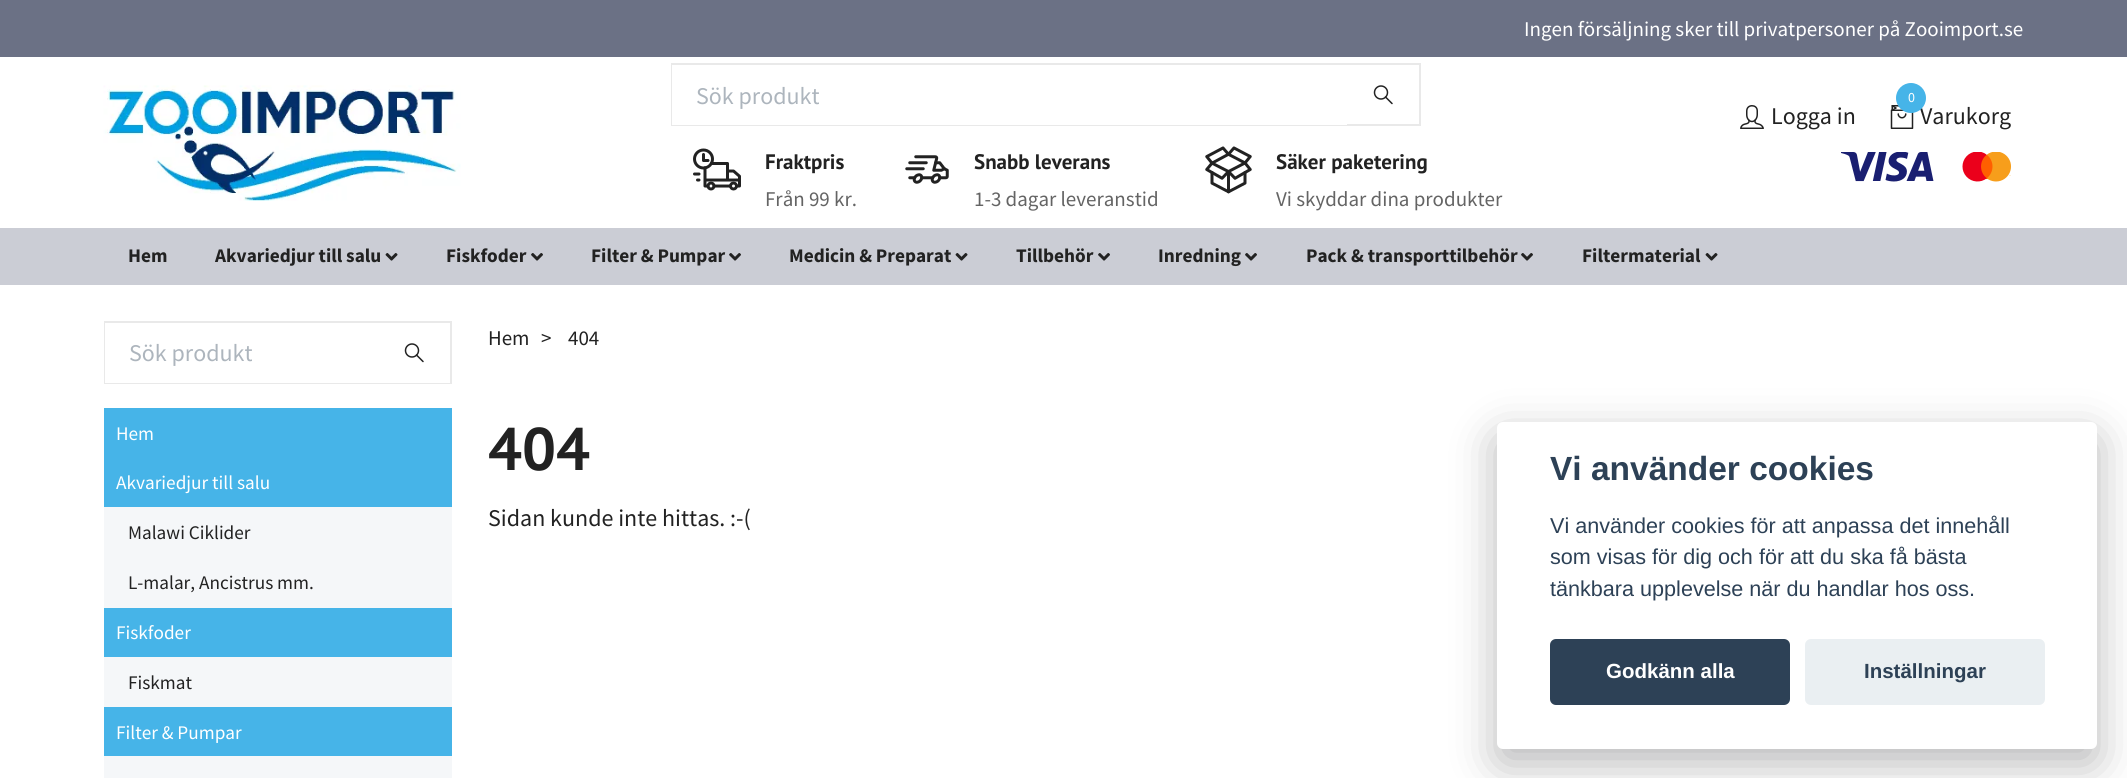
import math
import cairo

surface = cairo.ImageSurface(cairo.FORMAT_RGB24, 2127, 778)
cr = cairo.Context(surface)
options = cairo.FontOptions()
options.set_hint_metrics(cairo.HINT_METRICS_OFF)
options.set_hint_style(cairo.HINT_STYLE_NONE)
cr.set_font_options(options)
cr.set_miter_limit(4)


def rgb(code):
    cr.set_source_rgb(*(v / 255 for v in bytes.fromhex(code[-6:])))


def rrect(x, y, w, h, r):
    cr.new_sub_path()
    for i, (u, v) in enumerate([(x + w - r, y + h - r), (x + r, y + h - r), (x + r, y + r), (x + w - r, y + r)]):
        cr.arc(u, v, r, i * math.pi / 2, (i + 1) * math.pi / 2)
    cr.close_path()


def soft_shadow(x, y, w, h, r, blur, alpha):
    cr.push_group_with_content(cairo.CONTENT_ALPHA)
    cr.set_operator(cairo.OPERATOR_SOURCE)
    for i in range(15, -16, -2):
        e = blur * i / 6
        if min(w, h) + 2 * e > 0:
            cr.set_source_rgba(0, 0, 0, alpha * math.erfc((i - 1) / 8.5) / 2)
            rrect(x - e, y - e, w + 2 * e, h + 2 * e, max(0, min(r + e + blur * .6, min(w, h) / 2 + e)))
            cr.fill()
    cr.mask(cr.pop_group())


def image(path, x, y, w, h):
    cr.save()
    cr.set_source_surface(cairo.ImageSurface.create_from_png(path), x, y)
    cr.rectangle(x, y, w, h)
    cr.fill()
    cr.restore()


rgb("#ffffff")
cr.paint()
rgb("#6b7185")
cr.rectangle(0, 0, 2127, 57)
cr.fill()
image("img/1.png", 103, 85, 358, 116)
cr.rectangle(672, 64, 748, 61)
rgb("#e9e9e9")
cr.stroke()
rgb("#ffffff")
cr.rectangle(672, 65, 675, 60)
cr.fill()
cr.new_path()
cr.move_to(1385.5, 97)
cr.line_to(1392, 103.5)
rgb("#222222")
cr.set_line_width(1.5)
cr.set_line_cap(cairo.LINE_CAP_ROUND)
cr.set_line_join(cairo.LINE_JOIN_ROUND)
cr.stroke()
cr.arc(1381, 92.5, 6.5, 0, 2 * math.pi)
cr.set_line_cap(cairo.LINE_CAP_BUTT)
cr.set_line_join(cairo.LINE_JOIN_MITER)
cr.stroke()
image("img/2.png", 693, 148, 48, 43)
image("img/3.png", 905, 155, 44, 29)
image("img/4.png", 1205, 146, 47, 48)
image("img/5.png", 1740, 105, 24, 24)
image("img/6.png", 1890, 105, 24, 24)
image("img/7.png", 1841, 152, 93, 30)
image("img/8.png", 1962, 152, 49, 30)
rgb("#cbcdd5")
cr.rectangle(0, 228, 2127, 57)
cr.fill()
image("img/9.png", 385, 253, 13, 8)
image("img/10.png", 531, 253, 12, 8)
image("img/10.png", 729, 253, 12, 8)
image("img/9.png", 955, 253, 13, 8)
image("img/10.png", 1098, 253, 12, 8)
image("img/10.png", 1245, 253, 12, 8)
image("img/10.png", 1521, 253, 12, 8)
image("img/9.png", 1705, 253, 13, 8)
cr.rectangle(105, 322, 346, 61)
rgb("#e9e9e9")
cr.set_line_width(2)
cr.stroke()
rgb("#ffffff")
cr.rectangle(105, 323, 273, 60)
cr.fill()
cr.rectangle(378, 382, 72, 1)
cr.fill()
cr.new_path()
cr.move_to(416.5, 355)
cr.line_to(423, 361.5)
rgb("#222222")
cr.set_line_width(1.5)
cr.set_line_cap(cairo.LINE_CAP_ROUND)
cr.set_line_join(cairo.LINE_JOIN_ROUND)
cr.stroke()
cr.arc(412, 350.5, 6.5, 0, 2 * math.pi)
cr.set_line_cap(cairo.LINE_CAP_BUTT)
cr.set_line_join(cairo.LINE_JOIN_MITER)
cr.stroke()
for x, y, w, h, color in [
    (104, 408, 348, 99, "#46b4e8"),
    (104, 507, 348, 101, "#f5f7f9"),
    (104, 608, 348, 49, "#46b4e8"),
    (104, 657, 348, 50, "#f5f7f9"),
    (104, 707, 348, 49, "#46b4e8"),
    (104, 756, 348, 22, "#f5f7f9"),
]:
    rgb(color)
    cr.rectangle(x, y, w, h)
    cr.fill()
rgb("#020203")
soft_shadow(1497, 437, 600, 327, 6, 22.5, 0.28)
rgb("#ffffff")
rrect(1497, 422, 600, 327, 6)
cr.fill()
rgb("#2d4156")
rrect(1550, 639, 240, 66, 6)
cr.fill()
rgb("#eaeff2")
rrect(1805, 639, 240, 66, 6)
cr.fill()
cr.select_font_face("Source Sans Pro")
cr.set_font_size(21)
rgb("#ffffff")
cr.move_to(1524, 36)
cr.show_text("Ingen försäljning sker till privatpersoner på Zooimport.se")
cr.set_font_size(24)
rgb("#adb5bd")
cr.move_to(696, 104)
cr.show_text("Sök produkt")
cr.select_font_face("PT Sans", cairo.FONT_SLANT_NORMAL, cairo.FONT_WEIGHT_BOLD)
cr.set_font_size(21)
rgb("#222222")
cr.move_to(765, 169)
cr.show_text("Fraktpris")
cr.select_font_face("Source Sans Pro")
rgb("#646464")
cr.move_to(765, 206)
cr.show_text("Från 99 kr.")
cr.select_font_face("PT Sans", cairo.FONT_SLANT_NORMAL, cairo.FONT_WEIGHT_BOLD)
rgb("#222222")
cr.move_to(974, 169)
cr.show_text("Snabb leverans")
cr.select_font_face("Source Sans Pro")
rgb("#646464")
cr.move_to(974, 206)
cr.show_text("1-3 dagar leveranstid")
cr.select_font_face("PT Sans", cairo.FONT_SLANT_NORMAL, cairo.FONT_WEIGHT_BOLD)
rgb("#222222")
cr.move_to(1276, 169)
cr.show_text("Säker paketering")
cr.select_font_face("Source Sans Pro")
rgb("#646464")
cr.move_to(1276, 206)
cr.show_text("Vi skyddar dina produkter")
cr.set_font_size(24)
rgb("#222222")
cr.move_to(1771, 124)
cr.show_text("Logga in")
cr.move_to(1920, 124)
cr.show_text("Varukorg")
rgb("#46b4e8")
cr.new_path()
cr.arc(1911, 98, 15, 0, 2 * math.pi)
cr.fill()
cr.set_font_size(14)
rgb("#ffffff")
cr.move_to(1908, 102)
cr.show_text("0")
cr.select_font_face("Source Sans Pro", cairo.FONT_SLANT_NORMAL, cairo.FONT_WEIGHT_BOLD)
cr.set_font_size(19.25)
rgb("#222222")
for x, y, s in [
    (128, 262, "Hem"),
    (215, 262, "Akvariedjur till salu"),
    (446, 262, "Fiskfoder"),
    (591, 262, "Filter & Pumpar"),
    (789, 262, "Medicin & Preparat"),
    (1016, 262, "Tillbehör"),
    (1158, 262, "Inredning"),
    (1306, 262, "Pack & transporttilbehör"),
    (1582, 262, "Filtermaterial"),
]:
    cr.move_to(x, y)
    cr.show_text(s)
cr.select_font_face("Source Sans Pro")
cr.set_font_size(24)
rgb("#adb5bd")
cr.move_to(129, 361)
cr.show_text("Sök produkt")
cr.set_font_size(19.25)
rgb("#ffffff")
cr.move_to(116, 440)
cr.show_text("Hem")
cr.move_to(116, 489)
cr.show_text("Akvariedjur till salu")
rgb("#222222")
cr.move_to(128, 539)
cr.show_text("Malawi Ciklider")
cr.move_to(128, 589)
cr.show_text("L-malar, Ancistrus mm.")
rgb("#ffffff")
cr.move_to(116, 639)
cr.show_text("Fiskfoder")
rgb("#222222")
cr.move_to(128, 689)
cr.show_text("Fiskmat")
rgb("#ffffff")
cr.move_to(116, 739)
cr.show_text("Filter & Pumpar")
cr.set_font_size(21)
rgb("#222222")
for x, y, s in [
    (488, 345, "Hem"),
    (541, 345, ">"),
    (568, 345, "404"),
]:
    cr.move_to(x, y)
    cr.show_text(s)
cr.select_font_face("PT Sans", cairo.FONT_SLANT_NORMAL, cairo.FONT_WEIGHT_BOLD)
cr.set_font_size(60)
cr.move_to(488, 470)
cr.show_text("404")
cr.select_font_face("Source Sans Pro")
cr.set_font_size(24)
cr.move_to(488, 526)
cr.show_text("Sidan kunde inte hittas. :-(")
cr.select_font_face("Liberation Sans", cairo.FONT_SLANT_NORMAL, cairo.FONT_WEIGHT_BOLD)
cr.set_font_size(33.5)
rgb("#2d4156")
cr.move_to(1550, 480)
cr.show_text("Vi använder cookies")
cr.select_font_face("Liberation Sans")
cr.set_font_size(21.6)
for x, y, s in [
    (1550, 533, "Vi använder cookies för att anpassa det innehåll"),
    (1550, 564, "som visas för dig och för att du ska få bästa"),
    (1550, 596, "tänkbara upplevelse när du handlar hos oss."),
]:
    cr.move_to(x, y)
    cr.show_text(s)
cr.select_font_face("Liberation Sans", cairo.FONT_SLANT_NORMAL, cairo.FONT_WEIGHT_BOLD)
cr.set_font_size(20.5)
rgb("#ffffff")
cr.move_to(1606, 678)
cr.show_text("Godkänn alla")
rgb("#2d4156")
cr.move_to(1864, 678)
cr.show_text("Inställningar")
surface.write_to_png("page.png")
